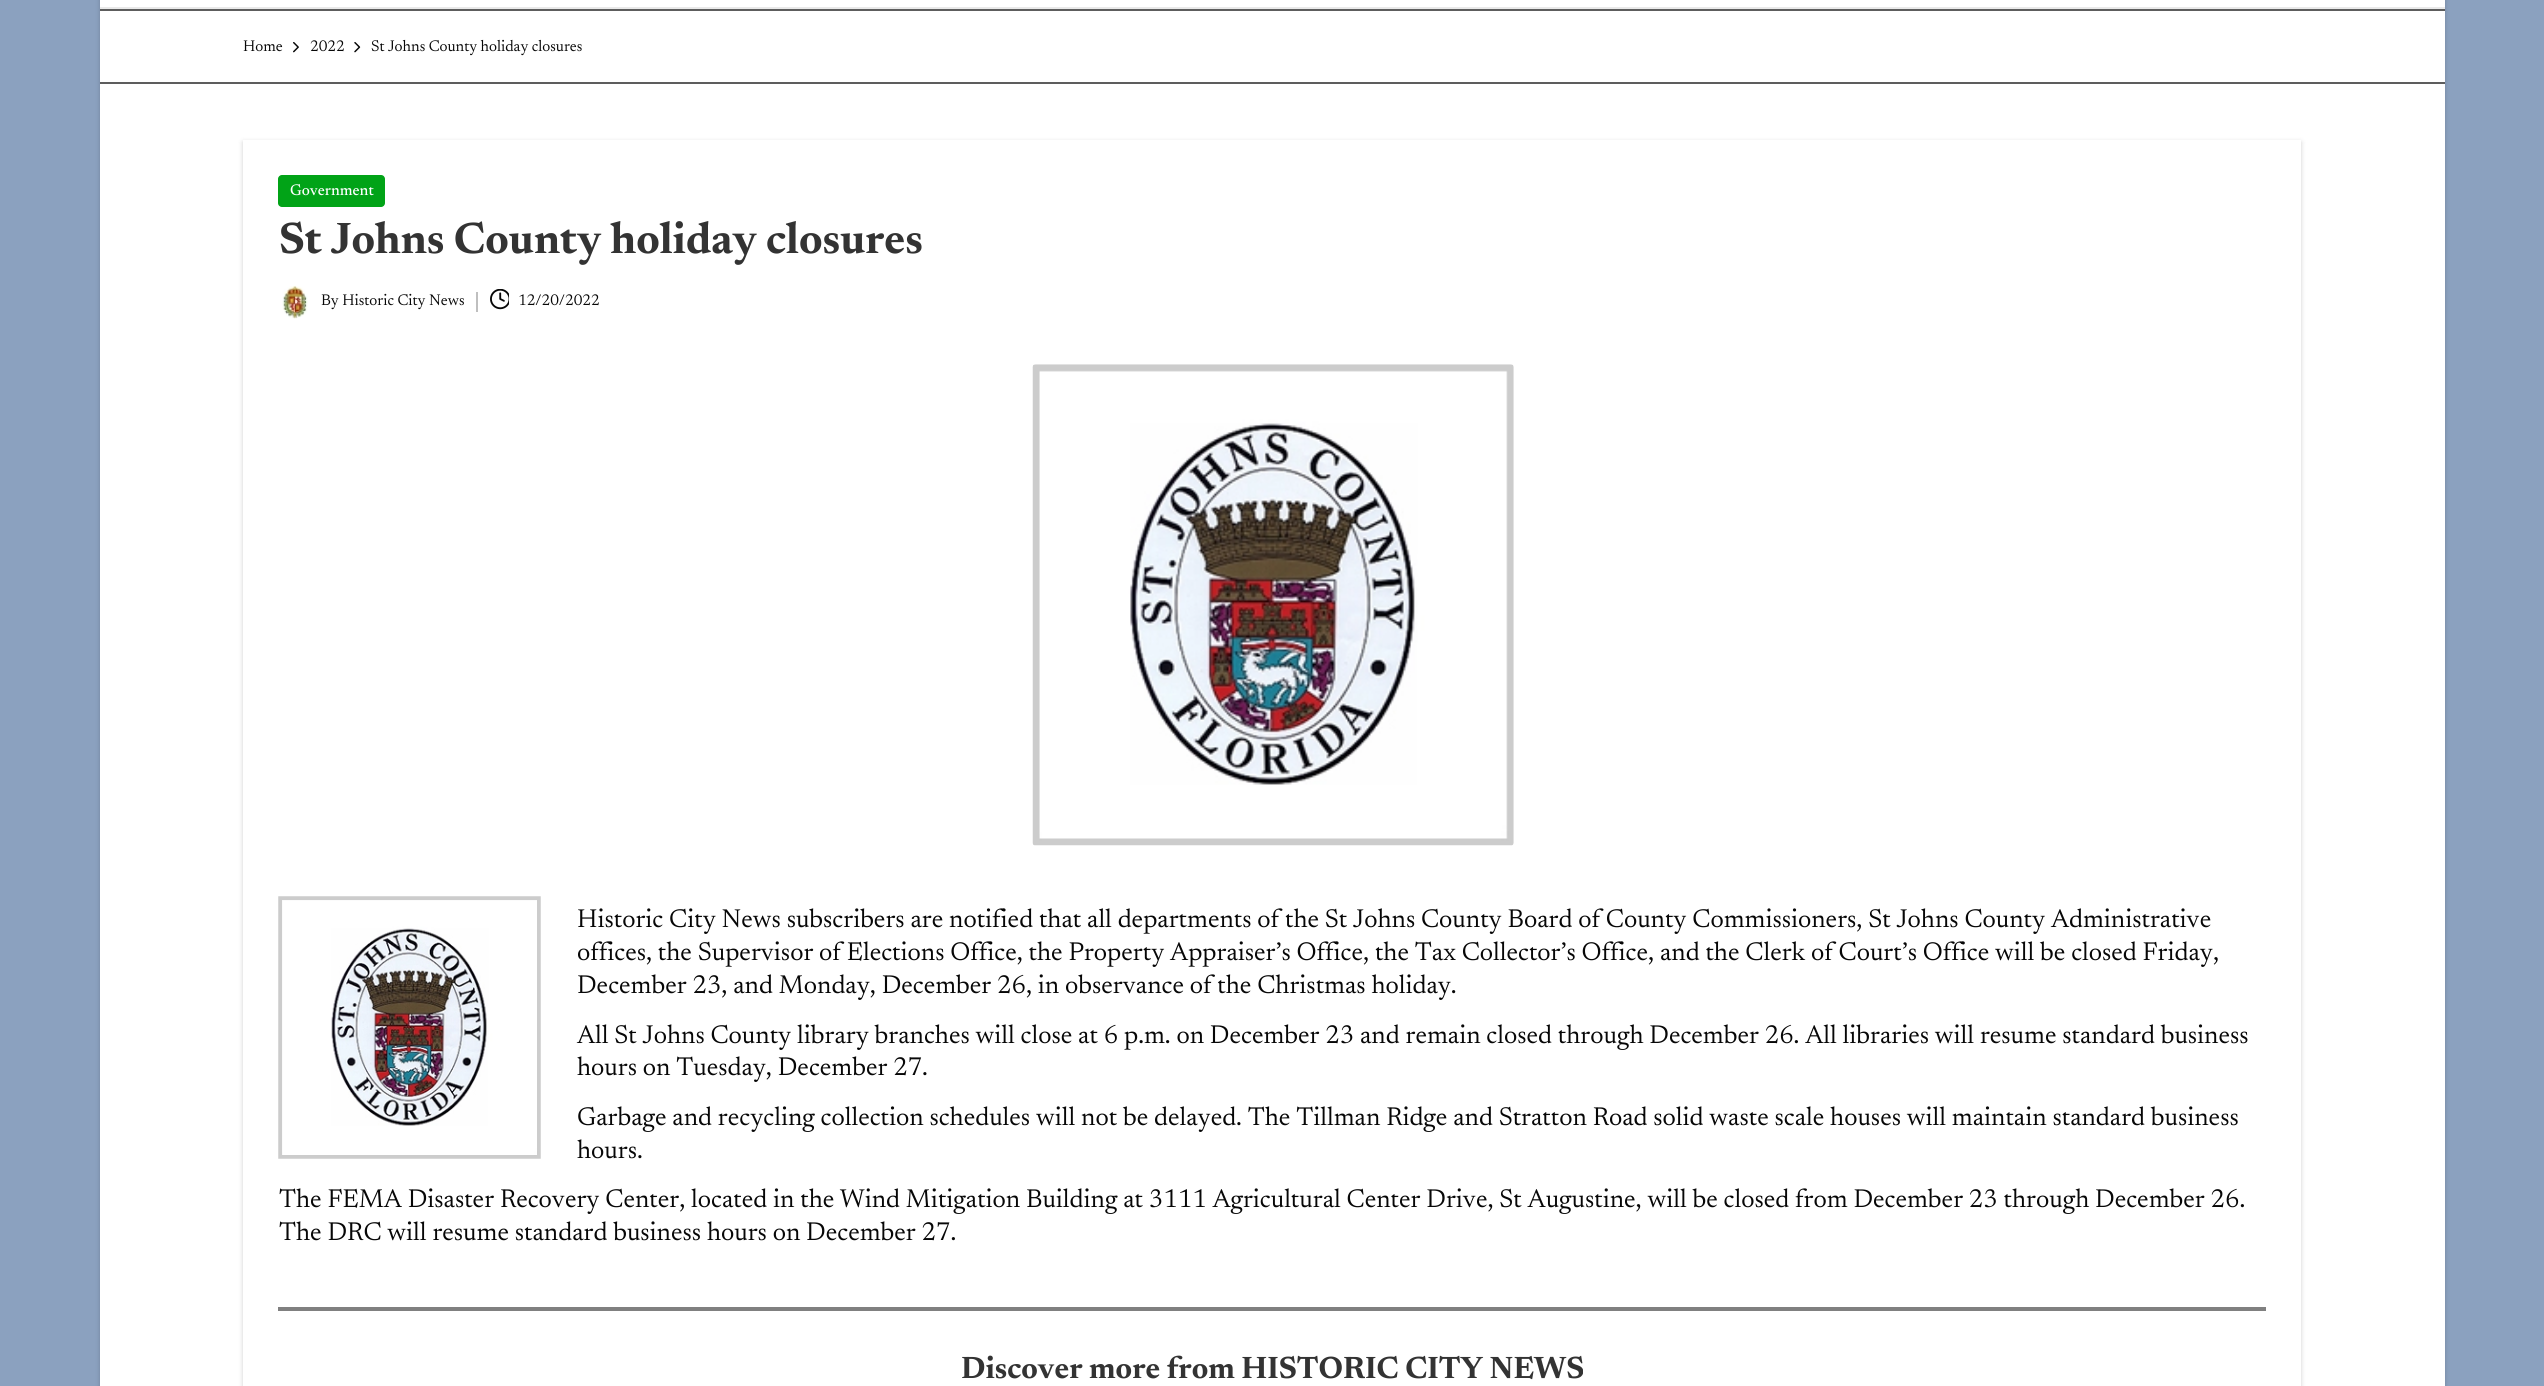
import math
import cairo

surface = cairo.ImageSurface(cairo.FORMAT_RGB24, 2544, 1386)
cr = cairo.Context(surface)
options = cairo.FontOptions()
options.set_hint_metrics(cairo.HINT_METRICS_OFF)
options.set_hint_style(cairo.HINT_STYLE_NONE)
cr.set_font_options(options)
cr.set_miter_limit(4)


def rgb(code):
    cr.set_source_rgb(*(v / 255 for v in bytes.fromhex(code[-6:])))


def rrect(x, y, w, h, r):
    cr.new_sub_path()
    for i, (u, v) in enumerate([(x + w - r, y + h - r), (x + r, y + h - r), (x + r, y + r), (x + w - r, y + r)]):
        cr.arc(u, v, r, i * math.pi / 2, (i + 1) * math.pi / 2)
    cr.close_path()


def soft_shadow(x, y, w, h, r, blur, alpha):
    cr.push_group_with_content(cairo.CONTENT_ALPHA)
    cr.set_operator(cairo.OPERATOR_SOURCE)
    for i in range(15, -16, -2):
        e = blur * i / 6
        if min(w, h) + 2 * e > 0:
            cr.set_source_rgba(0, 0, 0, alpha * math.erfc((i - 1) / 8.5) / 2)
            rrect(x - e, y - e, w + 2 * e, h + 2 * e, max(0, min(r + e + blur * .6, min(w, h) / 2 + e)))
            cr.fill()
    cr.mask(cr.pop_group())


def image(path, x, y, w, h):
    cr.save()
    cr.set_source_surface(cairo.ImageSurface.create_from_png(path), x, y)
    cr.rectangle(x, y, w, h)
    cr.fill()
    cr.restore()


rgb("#8ba1bf")
cr.paint()
rgb("#000000")
soft_shadow(100, -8, 2345, 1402, 0, 2.5, 0.18)
for x, y, w, h, color in [
    (100, 11, 2345, 1375, "#ffffff"),
    (100, 0, 2345, 7, "#ffffff"),
    (100, 7, 2345, 2, "#e9e9e9"),
    (100, 9, 2345, 2, "#5d5d5d"),
    (100, 82, 2345, 2, "#5d5d5d"),
]:
    rgb(color)
    cr.rectangle(x, y, w, h)
    cr.fill()
image("img/1.png", 293, 42, 6, 11)
image("img/2.png", 354, 42, 7, 11)
rgb("#000000")
soft_shadow(243, 142, 2058, 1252, 0, 2.5, 0.18)
rgb("#ffffff")
cr.rectangle(243, 140, 2058, 1246)
cr.fill()
rgb("#01a317")
rrect(278, 175, 107, 32, 4)
cr.fill()
image("img/3.png", 282, 285, 26, 34)
rgb("#bfbfbf")
cr.rectangle(476, 292, 2, 20)
cr.fill()
image("img/4.png", 490, 289, 19, 21)
image("img/5.png", 1032, 364, 482, 482)
image("img/6.png", 278, 896, 263, 263)
rgb("#808080")
cr.rectangle(278, 1307, 1988, 4)
cr.fill()
cr.select_font_face("Newsreader")
cr.set_font_size(15.75)
rgb("#070707")
for x, y, s in [
    (243, 51, "Home"),
    (310, 51, "2022"),
    (371, 51, "St Johns County holiday closures"),
]:
    cr.move_to(x, y)
    cr.show_text(s)
cr.select_font_face("Newsreader Medium")
rgb("#ffffff")
cr.move_to(290, 195)
cr.show_text("Government")
cr.select_font_face("Newsreader", cairo.FONT_SLANT_NORMAL, cairo.FONT_WEIGHT_BOLD)
cr.set_font_size(44.75)
rgb("#333333")
cr.move_to(279, 253)
cr.show_text("St Johns County holiday closures")
cr.select_font_face("Newsreader")
cr.set_font_size(15.75)
rgb("#070707")
cr.move_to(321, 305)
cr.show_text("By Historic City News")
cr.move_to(518, 305)
cr.show_text("12/20/2022")
cr.set_font_size(26.25)
for x, y, s in [
    (577, 927, "Historic City News subscribers are notified that all departments of the St Johns County Board of County Commissioners, St Johns County Administrative"),
    (577, 960, "offices, the Supervisor of Elections Office, the Property Appraiser’s Office, the Tax Collector’s Office, and the Clerk of Court’s Office will be closed Friday,"),
    (577, 993, "December 23, and Monday, December 26, in observance of the Christmas holiday."),
    (577, 1043, "All St Johns County library branches will close at 6 p.m. on December 23 and remain closed through December 26. All libraries will resume standard business"),
    (577, 1075, "hours on Tuesday, December 27."),
    (577, 1125, "Garbage and recycling collection schedules will not be delayed. The Tillman Ridge and Stratton Road solid waste scale houses will maintain standard business"),
    (577, 1158, "hours."),
    (279, 1207, "The FEMA Disaster Recovery Center, located in the Wind Mitigation Building at 3111 Agricultural Center Drive, St Augustine, will be closed from December 23 through December 26."),
    (279, 1240, "The DRC will resume standard business hours on December 27."),
]:
    cr.move_to(x, y)
    cr.show_text(s)
cr.select_font_face("Newsreader", cairo.FONT_SLANT_NORMAL, cairo.FONT_WEIGHT_BOLD)
cr.set_font_size(31.4)
rgb("#333333")
cr.move_to(961, 1378)
cr.show_text("Discover more from HISTORIC CITY NEWS")
surface.write_to_png("page.png")
